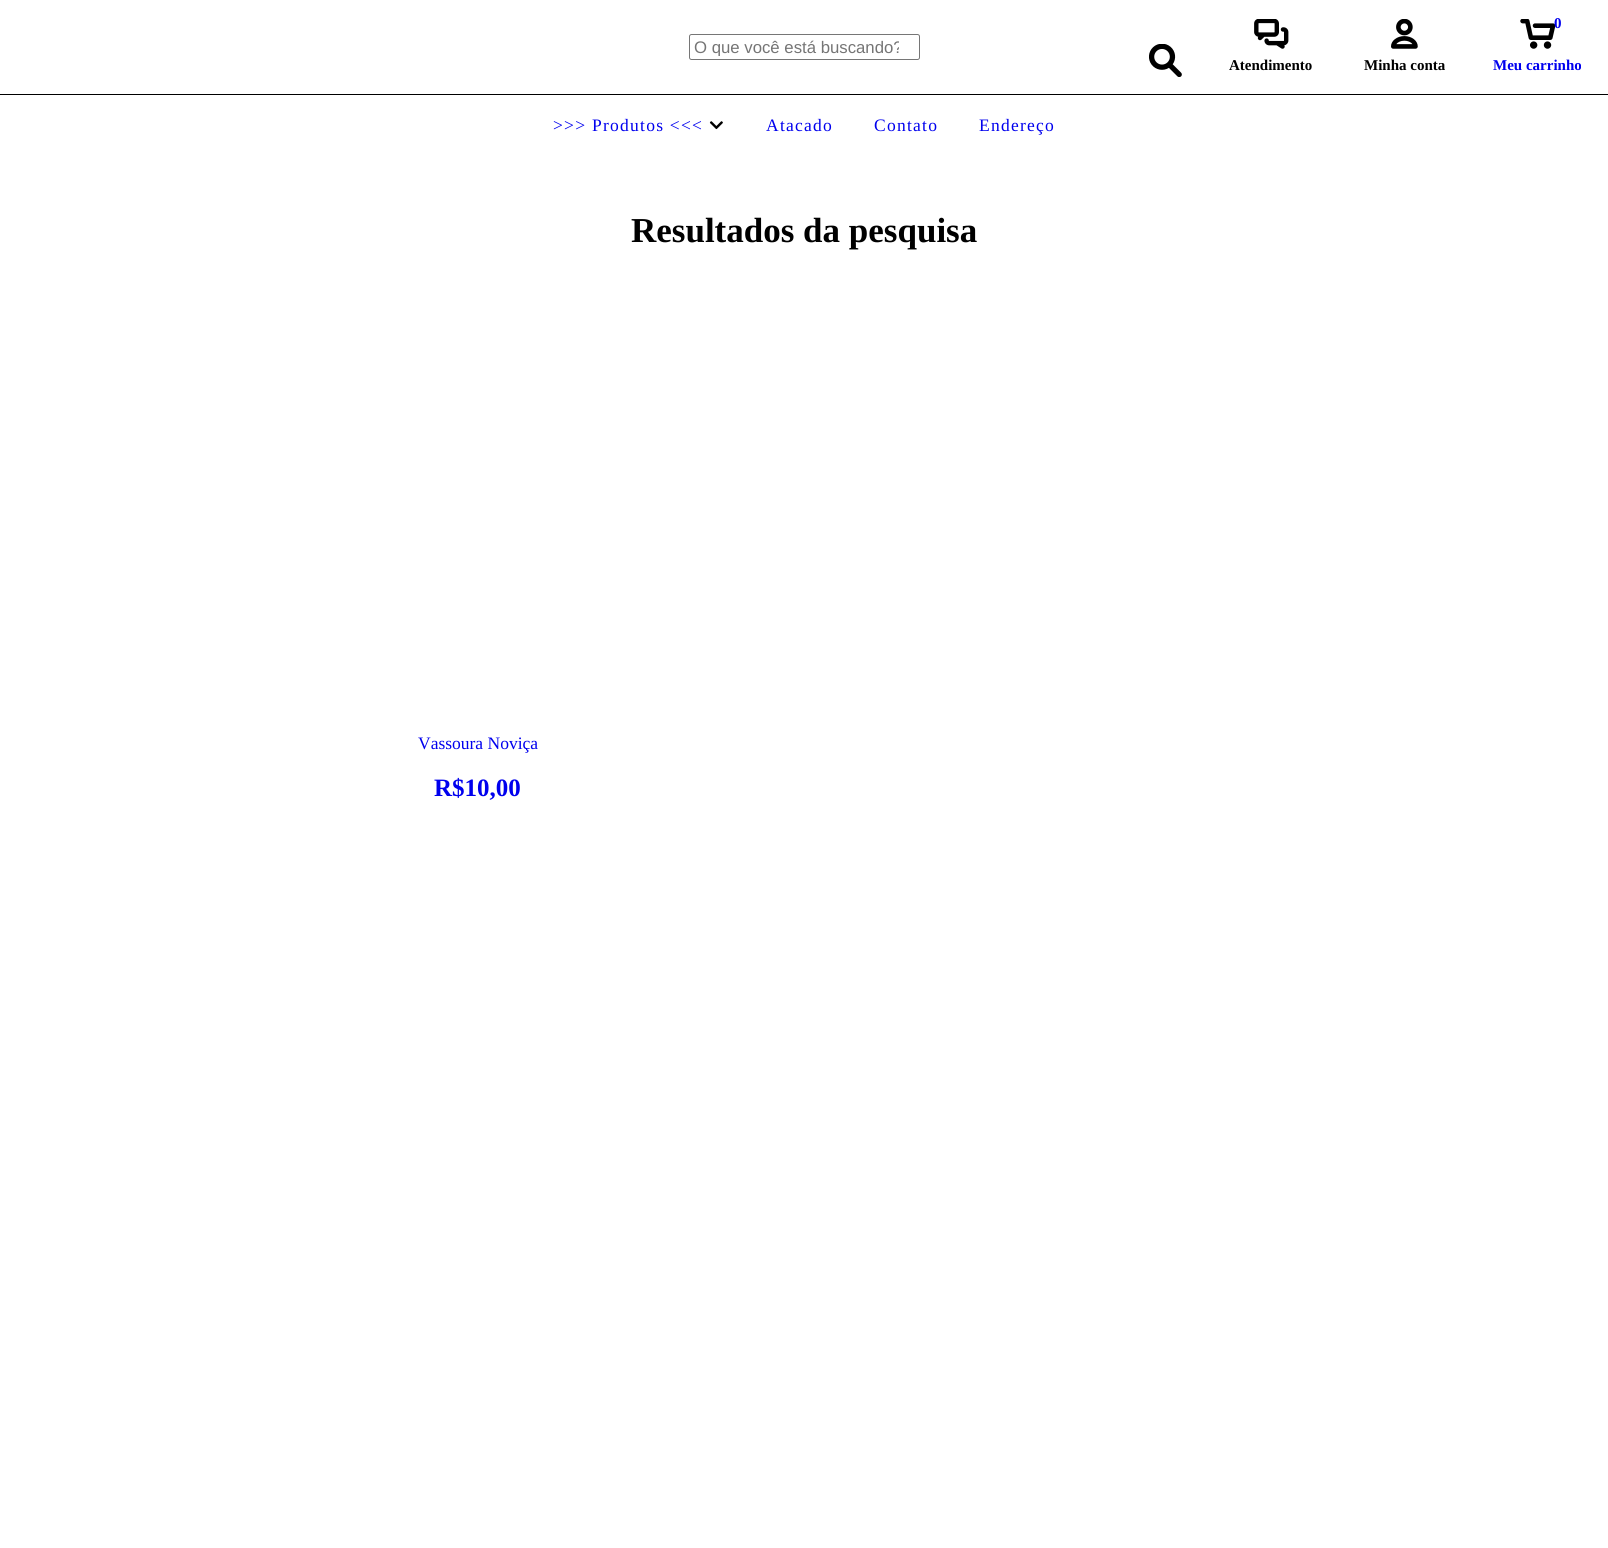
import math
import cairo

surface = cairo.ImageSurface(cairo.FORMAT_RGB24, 1608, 1548)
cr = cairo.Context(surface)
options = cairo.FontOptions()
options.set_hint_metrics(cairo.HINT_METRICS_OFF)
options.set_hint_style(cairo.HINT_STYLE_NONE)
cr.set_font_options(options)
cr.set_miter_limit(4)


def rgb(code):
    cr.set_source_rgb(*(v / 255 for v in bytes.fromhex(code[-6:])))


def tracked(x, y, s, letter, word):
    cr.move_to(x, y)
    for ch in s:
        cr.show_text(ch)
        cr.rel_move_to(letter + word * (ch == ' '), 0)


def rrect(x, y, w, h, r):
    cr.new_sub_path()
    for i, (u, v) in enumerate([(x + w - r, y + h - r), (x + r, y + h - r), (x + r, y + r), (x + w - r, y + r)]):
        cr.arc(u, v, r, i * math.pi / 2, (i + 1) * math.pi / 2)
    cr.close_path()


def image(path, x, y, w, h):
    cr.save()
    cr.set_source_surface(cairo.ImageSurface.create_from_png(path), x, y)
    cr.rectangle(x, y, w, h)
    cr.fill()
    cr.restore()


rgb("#ffffff")
cr.paint()
rrect(689.5, 34.5, 230, 25, 2)
rgb("#767676")
cr.set_line_width(1)
cr.stroke()
image("img/1.png", 1149, 44, 33, 33)
image("img/2.png", 1254, 19, 35, 30)
image("img/3.png", 1391, 19, 27, 30)
image("img/4.png", 1520, 19, 36, 30)
rgb("#000000")
cr.rectangle(0, 94, 1608, 1)
cr.fill()
image("img/5.png", 709, 121, 14, 9)
cr.save()
cr.rectangle(694, 38, 205, 18)
cr.clip()
cr.select_font_face("Liberation Sans")
cr.set_font_size(16.75)
rgb("#757575")
cr.move_to(694, 53)
cr.show_text("O que você está buscando?")
cr.restore()
cr.select_font_face("Liberation Serif", cairo.FONT_SLANT_NORMAL, cairo.FONT_WEIGHT_BOLD)
cr.set_font_size(15)
cr.move_to(1229, 70)
cr.show_text("Atendimento")
cr.move_to(1364, 70)
cr.show_text("Minha conta")
rgb("#0000ee")
cr.move_to(1554, 28)
cr.show_text("0")
cr.move_to(1493, 70)
cr.show_text("Meu carrinho")
cr.select_font_face("Liberation Serif")
cr.set_font_size(17.5)
for x, y, s in [
    (553, 131, ">>> Produtos <<<"),
    (766, 131, "Atacado"),
    (874, 131, "Contato"),
    (979, 131, "Endereço"),
]:
    tracked(x, y, s, 1.25, 0)
cr.select_font_face("Liberation Serif", cairo.FONT_SLANT_NORMAL, cairo.FONT_WEIGHT_BOLD)
cr.set_font_size(35)
rgb("#000000")
cr.move_to(631, 242)
cr.show_text("Resultados da pesquisa")
cr.select_font_face("Liberation Serif")
cr.set_font_size(17.5)
rgb("#0000ee")
cr.move_to(418, 749)
cr.show_text("Vassoura Noviça")
cr.select_font_face("Liberation Serif", cairo.FONT_SLANT_NORMAL, cairo.FONT_WEIGHT_BOLD)
cr.set_font_size(25)
cr.move_to(434, 796)
cr.show_text("R$10,00")
surface.write_to_png("page.png")
